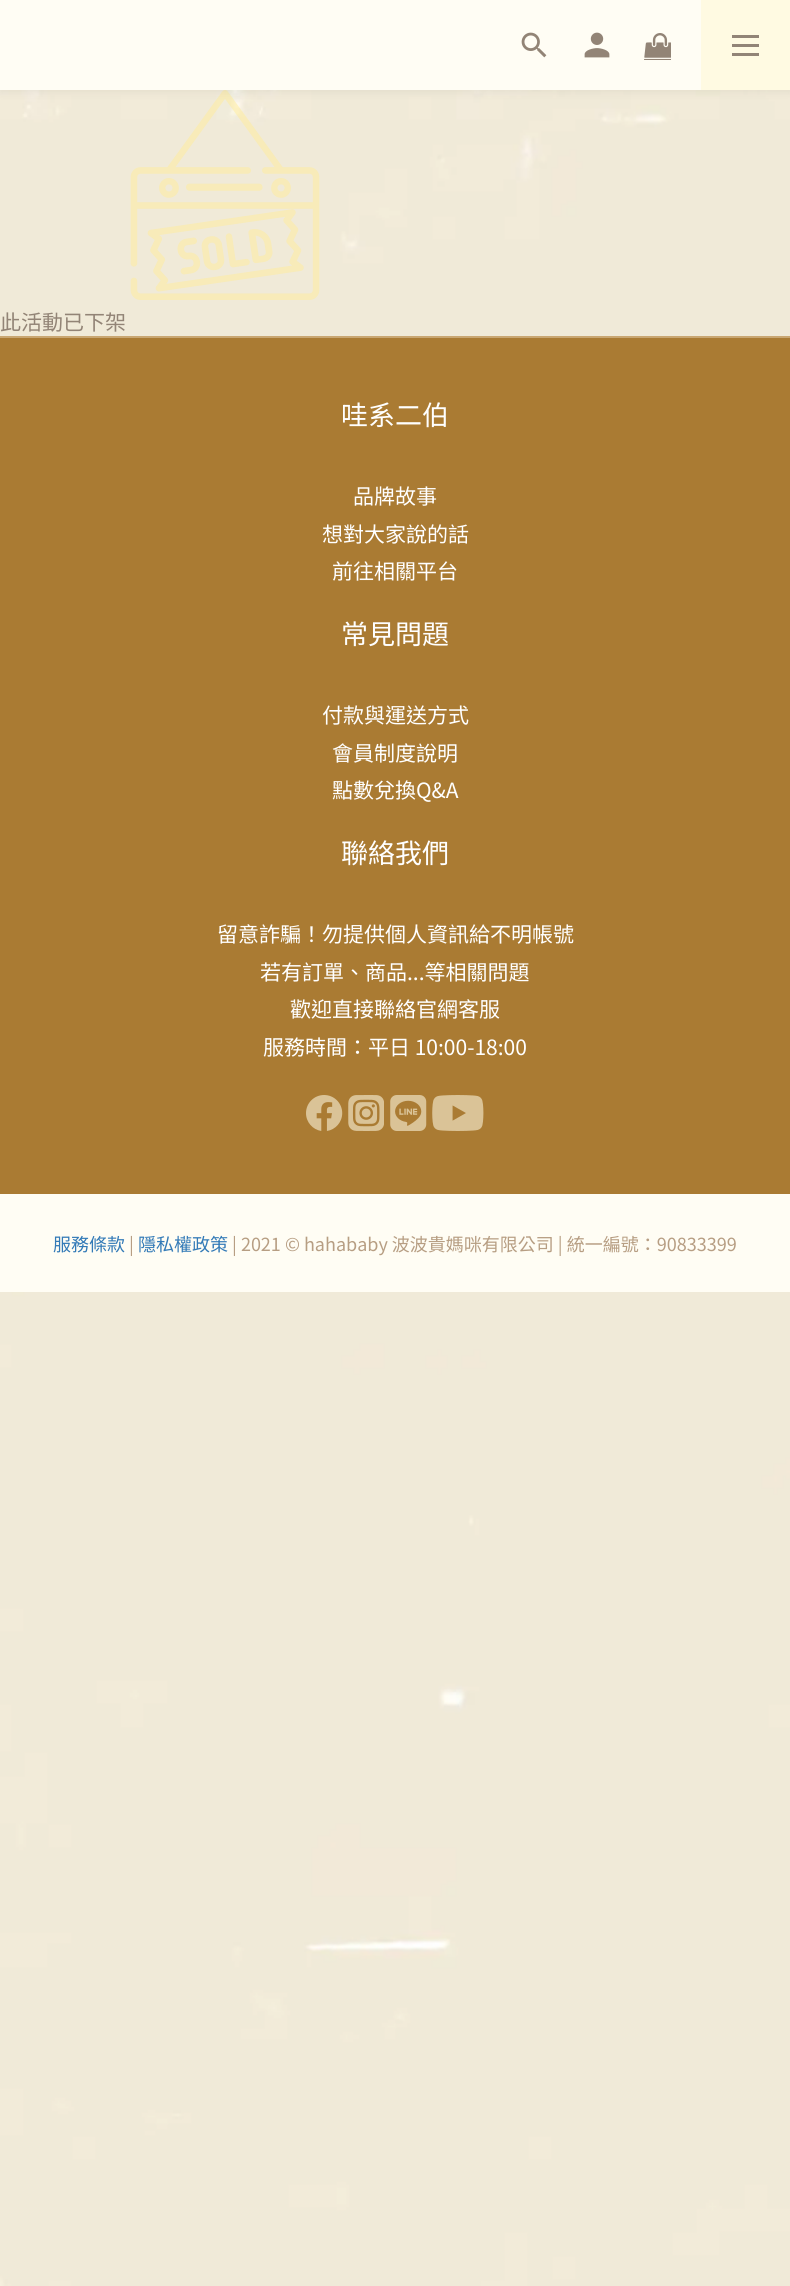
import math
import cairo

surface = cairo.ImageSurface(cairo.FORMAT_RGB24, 790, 2286)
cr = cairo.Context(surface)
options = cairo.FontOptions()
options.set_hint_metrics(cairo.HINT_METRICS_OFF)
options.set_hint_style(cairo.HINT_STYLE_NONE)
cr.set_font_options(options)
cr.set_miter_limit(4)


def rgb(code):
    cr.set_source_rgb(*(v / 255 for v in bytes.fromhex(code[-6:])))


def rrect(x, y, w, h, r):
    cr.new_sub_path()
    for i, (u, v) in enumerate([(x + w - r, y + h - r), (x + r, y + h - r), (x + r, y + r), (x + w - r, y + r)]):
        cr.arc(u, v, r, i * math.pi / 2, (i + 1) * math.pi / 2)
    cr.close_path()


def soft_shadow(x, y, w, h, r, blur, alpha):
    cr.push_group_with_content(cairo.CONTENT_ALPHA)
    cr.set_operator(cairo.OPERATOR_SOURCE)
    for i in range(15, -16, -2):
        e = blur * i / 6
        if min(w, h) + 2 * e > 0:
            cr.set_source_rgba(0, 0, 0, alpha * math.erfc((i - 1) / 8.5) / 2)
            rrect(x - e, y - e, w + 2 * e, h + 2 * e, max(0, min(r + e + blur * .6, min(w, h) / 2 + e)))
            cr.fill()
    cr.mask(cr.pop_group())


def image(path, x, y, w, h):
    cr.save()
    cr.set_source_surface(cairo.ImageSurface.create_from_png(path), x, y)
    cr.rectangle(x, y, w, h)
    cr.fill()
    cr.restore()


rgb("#ffffff")
cr.paint()
image("img/1.png", 0, 90, 790, 2196)
image("img/5.png", 130, 90, 190, 210)
rgb("#000000")
soft_shadow(0, 3, 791, 90, 0, 4.5, 0.06)
rgb("#fffdf4")
cr.rectangle(0, 0, 701, 90)
cr.fill()
image("img/2.png", 521, 32, 26, 26)
image("img/3.png", 584, 32, 26, 26)
image("img/4.png", 644, 33, 27, 27)
for x, y, w, h, color in [
    (701, 0, 89, 90, "#fffae2"),
    (732, 44, 27, 3, "#928476"),
    (732, 35, 27, 3, "#928476"),
    (732, 53, 27, 3, "#928476"),
    (0, 338, 790, 856, "#aa7b33"),
    (0, 336, 790, 2, "#c9a772"),
]:
    rgb(color)
    cr.rectangle(x, y, w, h)
    cr.fill()
image("img/6.png", 306, 1095, 37, 36)
image("img/7.png", 348, 1095, 36, 36)
image("img/8.png", 390, 1095, 37, 36)
image("img/9.png", 432, 1095, 52, 36)
rgb("#fffdf4")
cr.rectangle(0, 1194, 790, 98)
cr.fill()
cr.select_font_face("Noto Sans TC")
cr.set_font_size(21)
rgb("#928476")
cr.move_to(0, 330)
cr.show_text("此活動已下架")
cr.set_font_size(27)
rgb("#ffffff")
cr.move_to(341, 425)
cr.show_text("哇系二伯")
cr.set_font_size(21)
for x, y, s in [
    (353, 504, "品牌故事"),
    (322, 542, "想對大家說的話"),
    (332, 579, "前往相關平台"),
]:
    cr.move_to(x, y)
    cr.show_text(s)
cr.set_font_size(27)
cr.move_to(341, 644)
cr.show_text("常見問題")
cr.set_font_size(21)
for x, y, s in [
    (322, 723, "付款與運送方式"),
    (332, 761, "會員制度說明"),
    (332, 798, "點數兌換Q&A"),
]:
    cr.move_to(x, y)
    cr.show_text(s)
cr.set_font_size(27)
cr.move_to(341, 863)
cr.show_text("聯絡我們")
cr.set_font_size(21)
for x, y, s in [
    (217, 942, "留意詐騙！勿提供個人資訊給不明帳號"),
    (260, 980, "若有訂單、商品...等相關問題"),
    (290, 1017, "歡迎直接聯絡官網客服"),
    (263, 1055, "服務時間：平日 10:00-18:00"),
]:
    cr.move_to(x, y)
    cr.show_text(s)
cr.set_font_size(18)
rgb("#337ab7")
cr.move_to(53, 1251)
cr.show_text("服務條款")
rgb("#b79e83")
cr.move_to(129, 1251)
cr.show_text("|")
rgb("#337ab7")
cr.move_to(138, 1251)
cr.show_text("隱私權政策")
rgb("#b79e83")
cr.move_to(232, 1251)
cr.show_text("| 2021 © hahababy 波波貴媽咪有限公司 | 統一編號：90833399")
surface.write_to_png("page.png")
